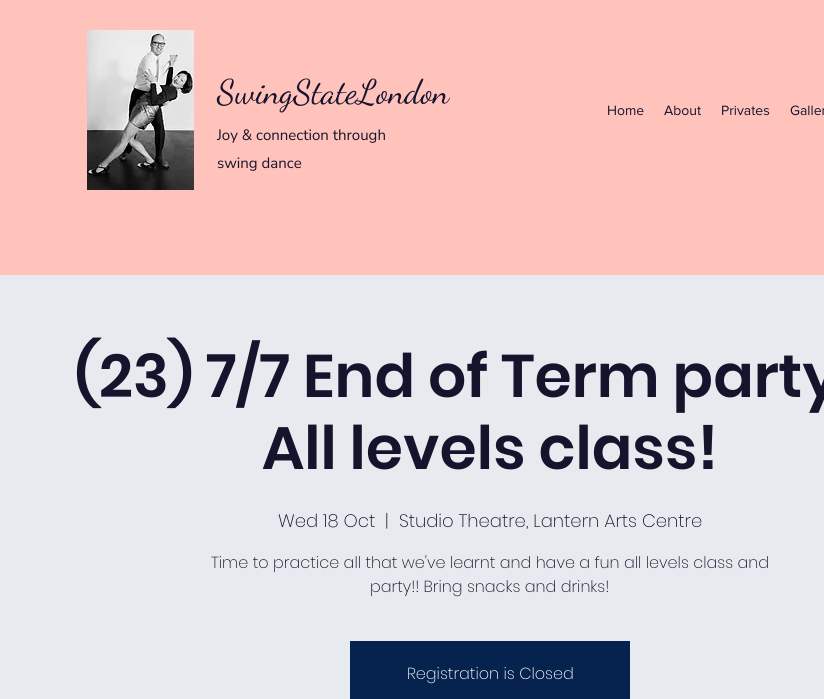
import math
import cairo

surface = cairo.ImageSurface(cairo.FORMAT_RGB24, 824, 699)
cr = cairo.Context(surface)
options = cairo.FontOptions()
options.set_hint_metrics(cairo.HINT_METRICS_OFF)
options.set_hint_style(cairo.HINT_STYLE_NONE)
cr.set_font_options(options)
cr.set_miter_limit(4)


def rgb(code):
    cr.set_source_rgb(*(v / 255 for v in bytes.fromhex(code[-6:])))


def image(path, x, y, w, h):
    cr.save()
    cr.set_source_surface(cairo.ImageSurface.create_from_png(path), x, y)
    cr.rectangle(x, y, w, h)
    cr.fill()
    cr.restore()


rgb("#e7eaee")
cr.paint()
rgb("#ffc3bc")
cr.rectangle(0, 0, 824, 275)
cr.fill()
image("img/1.png", 87, 30, 107, 160)
rgb("#06234f")
cr.rectangle(350, 641, 280, 58)
cr.fill()
cr.select_font_face("Dancing Script")
cr.set_font_size(34)
rgb("#16132c")
cr.move_to(217, 103)
cr.show_text("SwingStateLondon")
cr.select_font_face("Nunito Sans")
cr.set_font_size(15)
cr.move_to(217, 140)
cr.show_text("Joy & connection through")
cr.move_to(217, 168)
cr.show_text("swing dance")
cr.select_font_face("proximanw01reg")
cr.set_font_size(14)
for x, y, s in [
    (607, 115, "Home"),
    (664, 115, "About"),
    (721, 115, "Privates"),
    (790, 115, "Galler"),
]:
    cr.move_to(x, y)
    cr.show_text(s)
cr.select_font_face("Poppins SemiBold")
cr.set_font_size(60)
cr.move_to(75, 397)
cr.show_text("(23) 7/7 End of Term party")
cr.move_to(262, 469)
cr.show_text("All levels class!")
cr.select_font_face("Poppins ExtraLight")
cr.set_font_size(18)
for x, y, s in [
    (278, 527, "Wed 18 Oct"),
    (385, 527, "|"),
    (399, 527, "Studio Theatre, Lantern Arts Centre"),
]:
    cr.move_to(x, y)
    cr.show_text(s)
cr.set_font_size(16)
cr.move_to(211, 568)
cr.show_text("Time to practice all that we've learnt and have a fun all levels class and")
cr.move_to(370, 592)
cr.show_text("party!! Bring snacks and drinks!")
rgb("#ffffff")
cr.move_to(407, 679)
cr.show_text("Registration is Closed")
surface.write_to_png("page.png")
